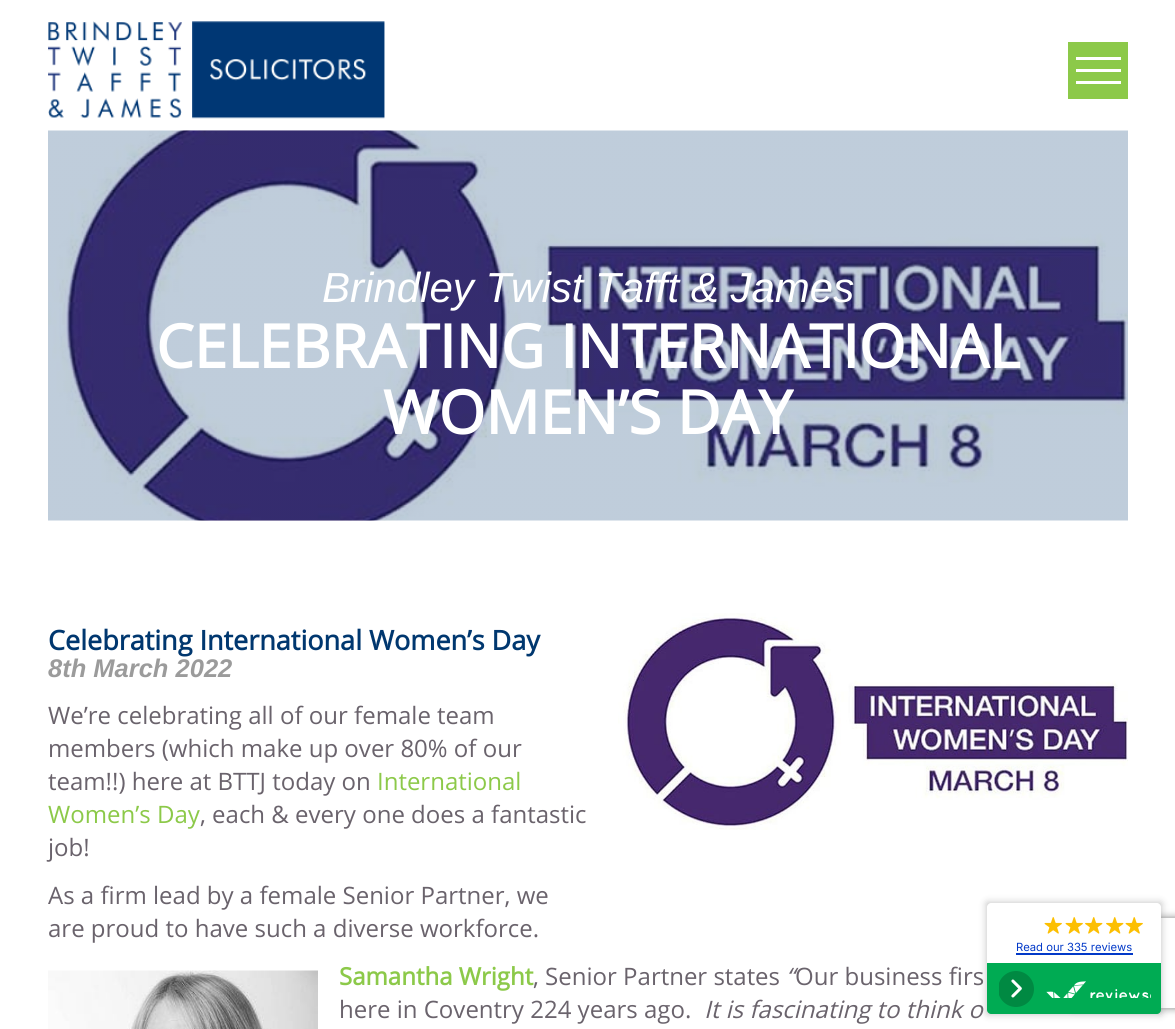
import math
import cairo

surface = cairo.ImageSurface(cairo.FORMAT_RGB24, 1175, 1029)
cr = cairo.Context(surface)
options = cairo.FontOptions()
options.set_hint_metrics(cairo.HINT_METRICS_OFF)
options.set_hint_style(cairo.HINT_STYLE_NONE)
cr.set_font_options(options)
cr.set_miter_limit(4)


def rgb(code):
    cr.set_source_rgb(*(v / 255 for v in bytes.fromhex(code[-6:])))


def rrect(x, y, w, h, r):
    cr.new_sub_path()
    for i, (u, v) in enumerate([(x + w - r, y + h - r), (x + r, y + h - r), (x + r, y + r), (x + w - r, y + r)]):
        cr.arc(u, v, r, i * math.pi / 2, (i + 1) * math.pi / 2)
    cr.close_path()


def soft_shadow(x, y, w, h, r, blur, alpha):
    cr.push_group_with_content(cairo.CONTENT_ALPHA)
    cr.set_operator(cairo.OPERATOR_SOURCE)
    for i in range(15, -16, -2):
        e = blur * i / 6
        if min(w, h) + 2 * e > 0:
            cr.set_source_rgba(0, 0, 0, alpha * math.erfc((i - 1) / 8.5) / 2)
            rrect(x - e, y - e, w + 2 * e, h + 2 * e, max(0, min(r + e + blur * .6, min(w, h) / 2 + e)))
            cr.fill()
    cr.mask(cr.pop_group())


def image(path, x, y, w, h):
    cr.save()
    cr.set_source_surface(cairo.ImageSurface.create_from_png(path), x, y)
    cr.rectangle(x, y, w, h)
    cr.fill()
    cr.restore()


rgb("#ffffff")
cr.paint()
image("img/1.png", 48, 21, 337, 98)
for x, y, w, h, color in [
    (1068, 42, 60, 57, "#8cc949"),
    (1076, 81, 45, 3, "#ffffff"),
    (1076, 57, 45, 3, "#ffffff"),
    (1076, 69, 45, 3, "#ffffff"),
]:
    rgb(color)
    cr.rectangle(x, y, w, h)
    cr.fill()
image("img/2.png", 48, 130, 1080, 391)
image("img/3.png", 618, 613, 510, 217)
image("img/4.png", 48, 970, 270, 59)
rgb("#000000")
soft_shadow(987, 903, 174, 111, 0, 4, 0.25)
cr.save()
cr.set_fill_rule(cairo.FILL_RULE_EVEN_ODD)
cr.new_path()
cr.move_to(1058, 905)
cr.line_to(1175, 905)
cr.line_to(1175, 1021)
cr.line_to(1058, 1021)
cr.close_path()
cr.move_to(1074, 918)
cr.line_to(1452, 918)
cr.curve_to(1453.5, 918, 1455, 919.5, 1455, 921)
cr.line_to(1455, 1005)
cr.curve_to(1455, 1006.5, 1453.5, 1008, 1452, 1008)
cr.line_to(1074, 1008)
cr.curve_to(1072.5, 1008, 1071, 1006.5, 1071, 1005)
cr.line_to(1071, 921)
cr.curve_to(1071, 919.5, 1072.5, 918, 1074, 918)
cr.close_path()
cr.clip()
rgb("#808080")
soft_shadow(1071, 918, 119, 90, 3, 4, 1)
cr.restore()
rgb("#ffffff")
cr.new_path()
cr.move_to(991, 903)
cr.line_to(1157, 903)
cr.curve_to(1159, 903, 1161, 905, 1161, 907)
cr.line_to(1161, 963)
cr.line_to(987, 963)
cr.line_to(987, 907)
cr.curve_to(987, 905, 989, 903, 991, 903)
cr.close_path()
cr.fill()
image("img/5.png", 1044, 917, 18, 17)
image("img/5.png", 1065, 917, 18, 17)
image("img/6.png", 1085, 917, 18, 17)
image("img/6.png", 1106, 917, 18, 17)
image("img/5.png", 1125, 917, 18, 17)
rgb("#0239c8")
cr.rectangle(1016, 953, 117, 2)
cr.fill()
rgb("#00ab53")
cr.new_path()
cr.move_to(987, 963)
cr.line_to(1161, 963)
cr.line_to(1161, 1010)
cr.curve_to(1161, 1012, 1159, 1014, 1157, 1014)
cr.line_to(991, 1014)
cr.curve_to(989, 1014, 987, 1012, 987, 1010)
cr.close_path()
cr.fill()
image("img/7.png", 999, 971, 35, 36)
image("img/8.png", 1046, 981, 105, 17)
cr.select_font_face("Liberation Sans", cairo.FONT_SLANT_ITALIC)
cr.set_font_size(42)
rgb("#ffffff")
cr.move_to(322, 302)
cr.show_text("Brindley Twist Tafft & James")
cr.select_font_face("Open Sans", cairo.FONT_SLANT_NORMAL, cairo.FONT_WEIGHT_BOLD)
cr.set_font_size(60)
cr.move_to(156, 368)
cr.show_text("CELEBRATING INTERNATIONAL")
cr.move_to(383, 434)
cr.show_text("WOMEN’S DAY")
cr.set_font_size(27)
rgb("#00376f")
cr.move_to(48, 650)
cr.show_text("Celebrating International Women’s Day")
cr.select_font_face("Liberation Sans", cairo.FONT_SLANT_ITALIC, cairo.FONT_WEIGHT_BOLD)
cr.set_font_size(25.5)
rgb("#9b9b9b")
cr.move_to(48, 677)
cr.show_text("8th March 2022")
cr.select_font_face("Open Sans")
cr.set_font_size(24)
rgb("#6a636c")
for x, y, s in [
    (48, 724, "We’re celebrating all of our female team"),
    (48, 757, "members (which make up over 80% of our"),
    (48, 790, "team!!) here at BTTJ today on"),
]:
    cr.move_to(x, y)
    cr.show_text(s)
rgb("#8cc949")
cr.move_to(377, 790)
cr.show_text("International")
cr.move_to(48, 823)
cr.show_text("Women’s Day")
rgb("#6a636c")
for x, y, s in [
    (200, 823, ", each & every one does a fantastic"),
    (48, 856, "job!"),
    (48, 904, "As a firm lead by a female Senior Partner, we"),
    (48, 937, "are proud to have such a diverse workforce."),
]:
    cr.move_to(x, y)
    cr.show_text(s)
cr.select_font_face("Open Sans", cairo.FONT_SLANT_NORMAL, cairo.FONT_WEIGHT_BOLD)
rgb("#8cc949")
cr.move_to(339, 985)
cr.show_text("Samantha Wright")
cr.select_font_face("Open Sans")
rgb("#6a636c")
cr.move_to(533, 985)
cr.show_text(", Senior Partner states")
cr.select_font_face("Open Sans", cairo.FONT_SLANT_ITALIC)
cr.move_to(786, 985)
cr.show_text("“")
cr.select_font_face("Open Sans")
cr.move_to(795, 985)
cr.show_text("Our business firs")
cr.move_to(339, 1018)
cr.show_text("here in Coventry 224 years ago.")
cr.select_font_face("Open Sans", cairo.FONT_SLANT_ITALIC)
cr.move_to(704, 1018)
cr.show_text("It is fascinating to think o")
cr.select_font_face("Inter")
cr.set_font_size(11.25)
rgb("#0239c8")
cr.move_to(1016, 951)
cr.show_text("Read our 335 reviews")
surface.write_to_png("page.png")
